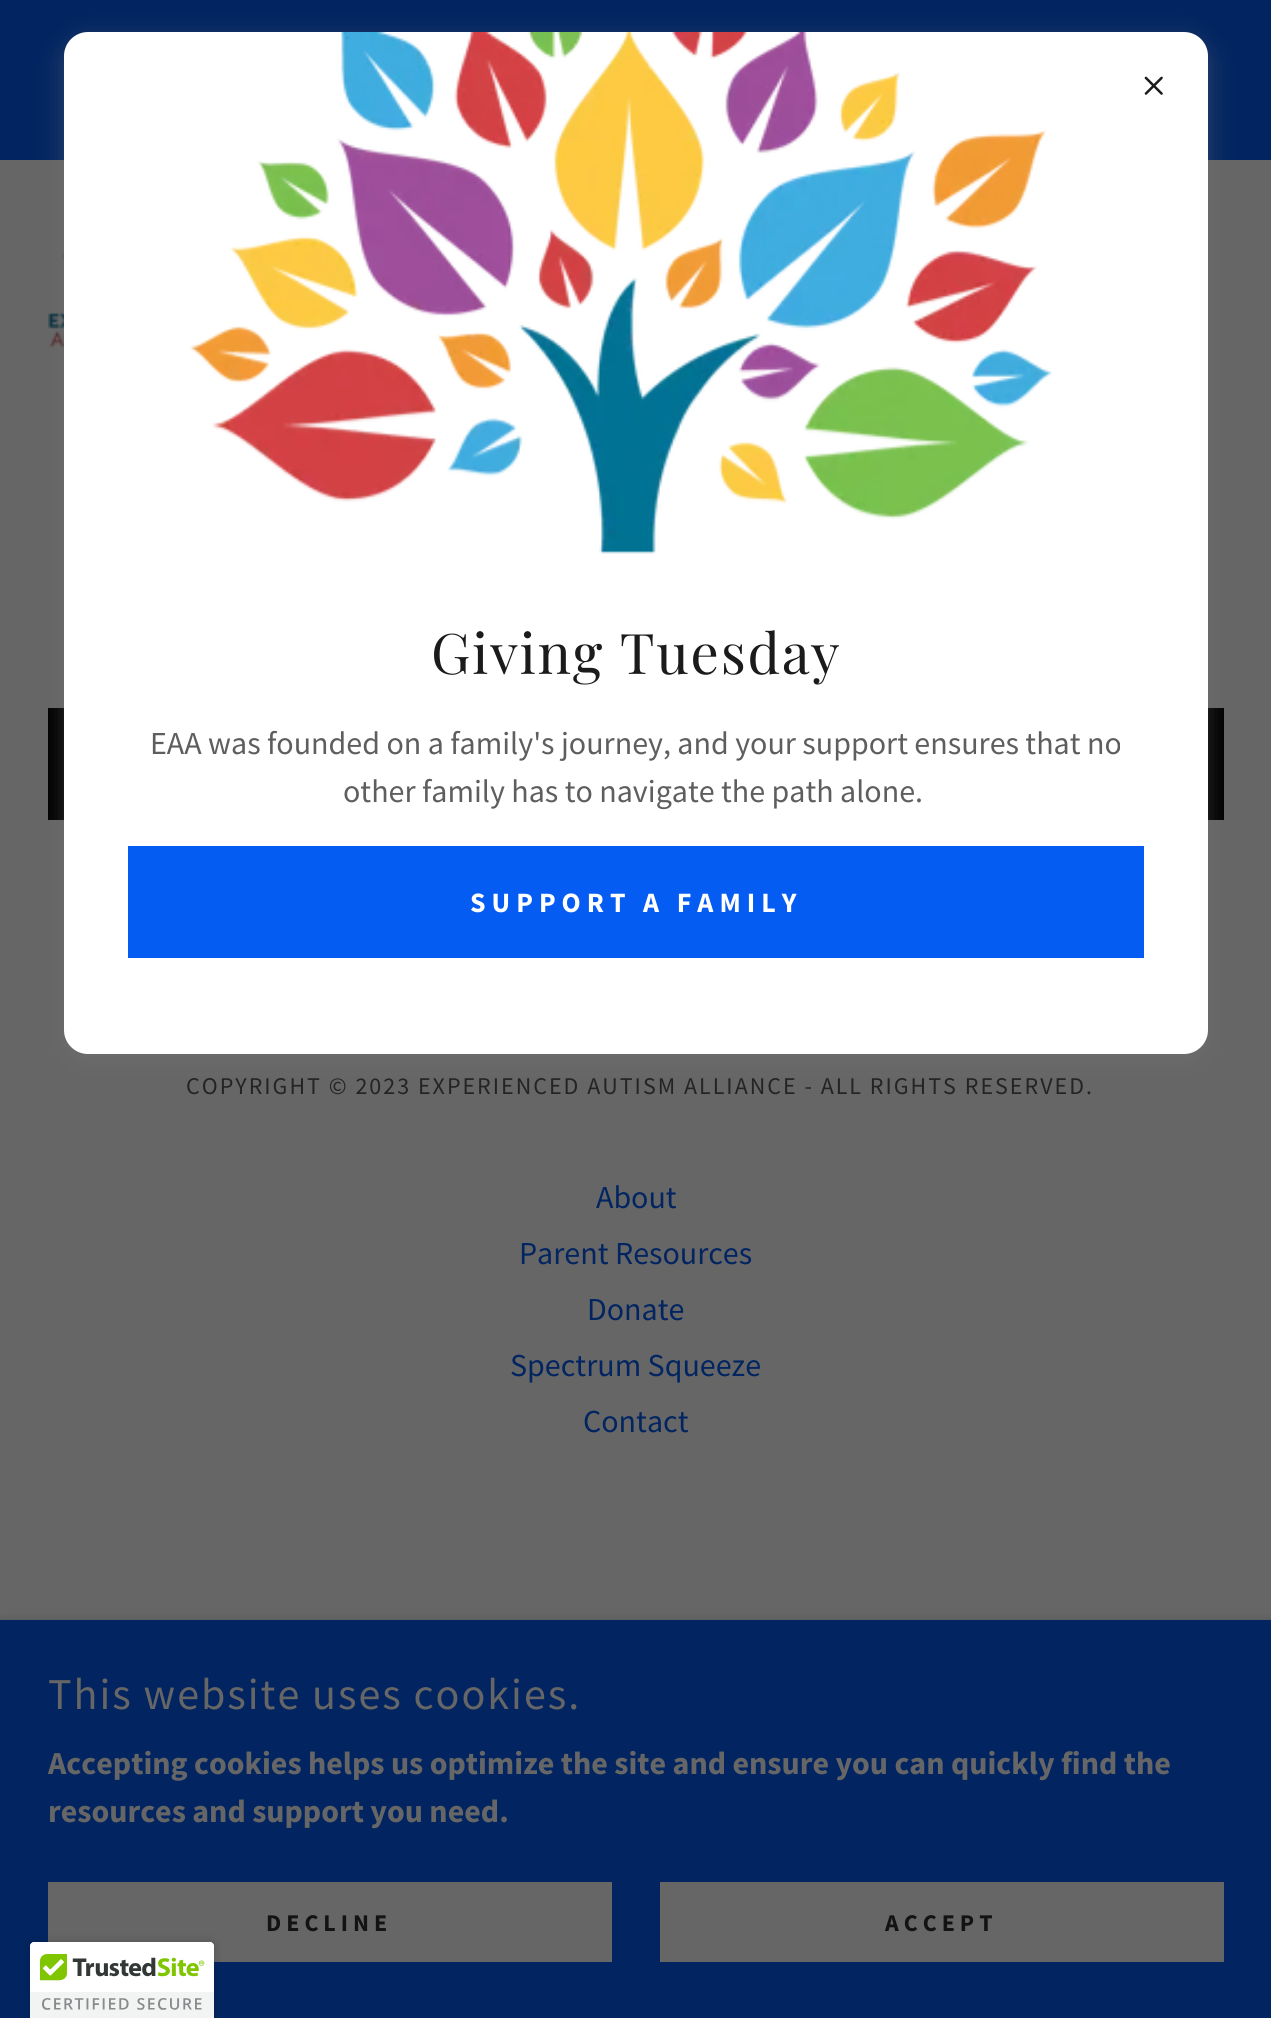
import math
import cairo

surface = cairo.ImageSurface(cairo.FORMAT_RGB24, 1271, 2018)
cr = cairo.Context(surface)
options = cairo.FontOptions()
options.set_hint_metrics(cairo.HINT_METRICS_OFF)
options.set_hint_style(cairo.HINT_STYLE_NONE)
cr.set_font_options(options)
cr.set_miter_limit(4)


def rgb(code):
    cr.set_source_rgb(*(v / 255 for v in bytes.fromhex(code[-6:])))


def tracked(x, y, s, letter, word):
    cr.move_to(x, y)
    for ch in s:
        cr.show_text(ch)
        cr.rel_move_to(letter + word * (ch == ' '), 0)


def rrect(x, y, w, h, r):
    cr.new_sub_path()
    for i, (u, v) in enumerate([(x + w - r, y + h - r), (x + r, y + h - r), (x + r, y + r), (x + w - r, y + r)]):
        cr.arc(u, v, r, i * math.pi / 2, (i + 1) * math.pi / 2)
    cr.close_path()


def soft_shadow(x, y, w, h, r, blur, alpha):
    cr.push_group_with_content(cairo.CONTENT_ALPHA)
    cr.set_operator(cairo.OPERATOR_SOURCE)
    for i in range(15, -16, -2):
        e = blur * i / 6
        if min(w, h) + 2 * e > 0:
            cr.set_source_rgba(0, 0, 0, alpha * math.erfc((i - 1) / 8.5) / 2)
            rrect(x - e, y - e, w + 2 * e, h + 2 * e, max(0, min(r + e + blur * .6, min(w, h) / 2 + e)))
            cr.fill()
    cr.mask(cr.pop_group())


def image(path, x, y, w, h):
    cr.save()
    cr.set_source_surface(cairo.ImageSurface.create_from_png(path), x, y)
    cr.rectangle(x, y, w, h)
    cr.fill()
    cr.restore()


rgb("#666666")
cr.paint()
rgb("#022561")
cr.rectangle(0, 0, 1271, 160)
cr.fill()
image("img/1.png", 48, 253, 16, 95)
rgb("#000000")
cr.rectangle(48, 708, 1176, 112)
cr.fill()
rgb("#757575")
soft_shadow(64, 40, 1144, 1022, 24, 12, 0.4)
rgb("#ffffff")
rrect(64, 32, 1144, 1022, 24)
cr.fill()
image("img/2.png", 1144, 76, 19, 19)
image("img/3.png", 190, 32, 863, 522)
rgb("#055cf2")
cr.rectangle(128, 846, 1016, 112)
cr.fill()
rgb("#000000")
soft_shadow(0, 1624, 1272, 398, 0, 6, 0.3)
for x, y, w, h, color in [
    (0, 1620, 1271, 398, "#022561"),
    (48, 1882, 564, 80, "#666666"),
    (660, 1882, 564, 80, "#666666"),
]:
    rgb(color)
    cr.rectangle(x, y, w, h)
    cr.fill()
rgb("#000000")
soft_shadow(30, 1942, 184, 76, 4, 5, 0.2)
rgb("#ffffff")
cr.new_path()
cr.move_to(34, 1942)
cr.line_to(210, 1942)
cr.curve_to(212, 1942, 214, 1944, 214, 1946)
cr.line_to(214, 2018)
cr.line_to(30, 2018)
cr.line_to(30, 1946)
cr.curve_to(30, 1944, 32, 1942, 34, 1942)
cr.close_path()
cr.fill()
image("img/4.png", 30, 1942, 184, 76)
cr.select_font_face("Playfair Display")
cr.set_font_size(56)
rgb("#1b1b1b")
tracked(431, 674, "Giving Tuesday", 1.75, 0)
cr.select_font_face("Source Sans Pro")
cr.set_font_size(32)
rgb("#5e5e5e")
cr.move_to(150, 754)
cr.show_text("EAA was founded on a family's journey, and your support ensures that no")
cr.move_to(343, 802)
cr.show_text("other family has to navigate the path alone.")
cr.select_font_face("Source Sans Pro", cairo.FONT_SLANT_NORMAL, cairo.FONT_WEIGHT_BOLD)
cr.set_font_size(28)
rgb("#ffffff")
tracked(470, 912, "SUPPORT A FAMILY", 6, 0)
cr.select_font_face("Source Sans Pro")
cr.set_font_size(24)
rgb("#242424")
tracked(186, 1094, "COPYRIGHT © 2023 EXPERIENCED AUTISM ALLIANCE - ALL RIGHTS RESERVED.", 2, 0)
cr.set_font_size(32)
rgb("#022561")
for x, y, s in [
    (596, 1208, "About"),
    (519, 1264, "Parent Resources"),
    (587, 1320, "Donate"),
    (510, 1376, "Spectrum Squeeze"),
    (583, 1432, "Contact"),
]:
    cr.move_to(x, y)
    cr.show_text(s)
cr.set_font_size(44)
rgb("#666666")
tracked(48, 1709, "This website uses cookies.", 2, 0)
cr.select_font_face("Source Sans Pro", cairo.FONT_SLANT_NORMAL, cairo.FONT_WEIGHT_BOLD)
cr.set_font_size(32)
cr.move_to(48, 1774)
cr.show_text("Accepting cookies helps us optimize the site and ensure you can quickly find the")
cr.move_to(48, 1822)
cr.show_text("resources and support you need.")
cr.set_font_size(24)
rgb("#131313")
tracked(266, 1931, "DECLINE", 5, 0)
tracked(885, 1931, "ACCEPT", 5, 0)
surface.write_to_png("page.png")
